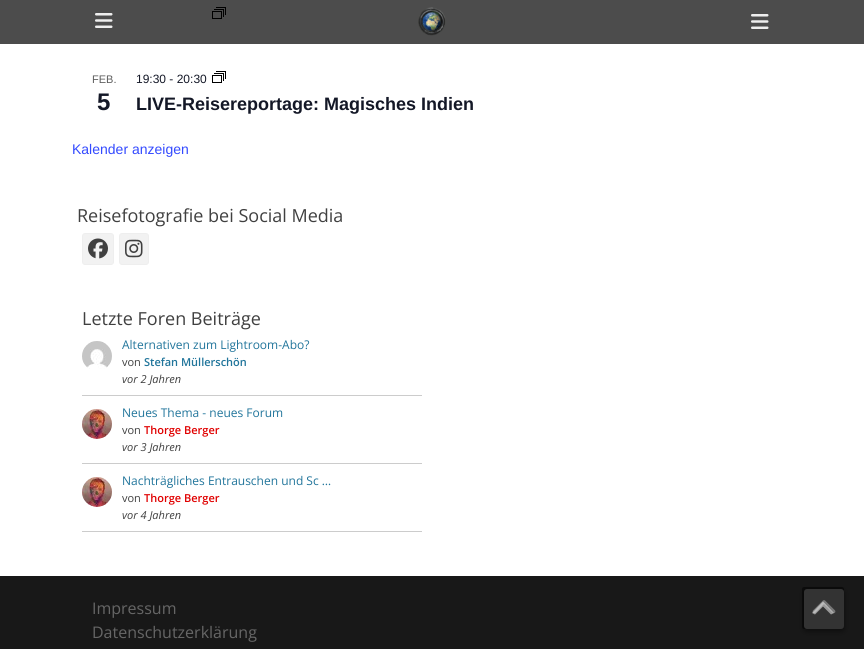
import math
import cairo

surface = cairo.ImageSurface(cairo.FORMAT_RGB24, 864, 649)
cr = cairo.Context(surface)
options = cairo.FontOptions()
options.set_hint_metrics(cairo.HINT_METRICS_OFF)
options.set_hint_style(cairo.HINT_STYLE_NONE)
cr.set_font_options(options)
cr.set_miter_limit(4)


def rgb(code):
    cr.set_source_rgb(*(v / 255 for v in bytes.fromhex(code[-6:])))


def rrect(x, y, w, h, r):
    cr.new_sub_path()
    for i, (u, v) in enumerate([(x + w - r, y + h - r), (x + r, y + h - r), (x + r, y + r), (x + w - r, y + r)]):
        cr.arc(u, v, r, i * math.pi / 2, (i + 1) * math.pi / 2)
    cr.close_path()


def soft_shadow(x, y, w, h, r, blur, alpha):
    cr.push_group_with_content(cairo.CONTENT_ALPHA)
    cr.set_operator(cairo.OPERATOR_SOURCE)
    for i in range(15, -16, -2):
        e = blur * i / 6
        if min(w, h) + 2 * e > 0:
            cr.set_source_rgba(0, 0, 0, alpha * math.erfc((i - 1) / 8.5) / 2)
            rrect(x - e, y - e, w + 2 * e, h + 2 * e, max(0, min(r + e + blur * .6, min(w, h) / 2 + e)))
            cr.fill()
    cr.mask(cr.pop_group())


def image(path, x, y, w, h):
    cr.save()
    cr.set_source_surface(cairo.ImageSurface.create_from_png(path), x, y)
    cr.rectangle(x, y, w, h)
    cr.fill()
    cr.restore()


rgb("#ffffff")
cr.paint()
image("img/4.png", 212, 7, 14, 12)
cr.set_source_rgba(0, 0, 0, 0.7)
cr.rectangle(0, 0, 864, 44)
cr.fill()
image("img/1.png", 95, 13, 18, 15)
image("img/2.png", 418, 7, 28, 29)
image("img/3.png", 751, 14, 18, 15)
image("img/4.png", 212, 71, 14, 12)
rgb("#f2f2f2")
rrect(82.5, 233.5, 31, 31, 2.5)
cr.fill_preserve()
rgb("#eeeeee")
cr.set_line_width(1)
cr.stroke()
image("img/5.png", 88, 238, 20, 21)
rgb("#f2f2f2")
rrect(119.5, 233.5, 29, 31, 2.5)
cr.fill_preserve()
rgb("#eeeeee")
cr.stroke()
image("img/6.png", 125, 239, 18, 19)
rgb("#cccccc")
cr.rectangle(82, 395, 340, 1)
cr.fill()
image("img/7.png", 82, 341, 30, 28)
cr.rectangle(82, 463, 340, 1)
cr.fill()
image("img/8.png", 82, 409, 30, 30)
cr.rectangle(82, 531, 340, 1)
cr.fill()
image("img/8.png", 82, 477, 30, 30)
rgb("#181818")
cr.rectangle(0, 576, 864, 73)
cr.fill()
rgb("#000000")
soft_shadow(804, 591, 40, 40, 3, 3, 0.5)
rgb("#666666")
rrect(804, 589, 40, 40, 3)
cr.fill()
image("img/9.png", 812, 600, 24, 14)
cr.set_source_rgba(0, 0, 0, 0.5)
rrect(802, 587, 42, 42, 2)
cr.fill()
cr.set_source_rgba(1, 1, 1, 0.5)
cr.new_path()
cr.move_to(831, 614.5)
cr.line_to(823, 606.5)
cr.line_to(815, 614.5)
cr.line_to(812, 613)
cr.line_to(823, 601.5)
cr.line_to(834, 613)
cr.close_path()
cr.fill()
cr.select_font_face("Liberation Sans")
cr.set_font_size(11)
rgb("#5d5d5d")
cr.move_to(92, 83)
cr.show_text("FEB.")
cr.select_font_face("Liberation Sans", cairo.FONT_SLANT_NORMAL, cairo.FONT_WEIGHT_BOLD)
cr.set_font_size(24)
rgb("#141827")
cr.move_to(97, 110)
cr.show_text("5")
cr.select_font_face("Liberation Sans")
cr.set_font_size(12)
cr.move_to(136, 83)
cr.show_text("19:30 - 20:30")
cr.select_font_face("Liberation Sans", cairo.FONT_SLANT_NORMAL, cairo.FONT_WEIGHT_BOLD)
cr.set_font_size(18)
cr.move_to(136, 110)
cr.show_text("LIVE-Reisereportage: Magisches Indien")
cr.select_font_face("Liberation Sans")
cr.set_font_size(14)
rgb("#334aff")
cr.move_to(72, 154)
cr.show_text("Kalender anzeigen")
cr.select_font_face("Open Sans")
cr.set_font_size(18)
rgb("#404040")
cr.move_to(77, 222)
cr.show_text("Reisefotografie bei Social Media")
cr.move_to(82, 325)
cr.show_text("Letzte Foren Beiträge")
cr.set_font_size(12)
rgb("#21759b")
cr.move_to(122, 349)
cr.show_text("Alternativen zum Lightroom-Abo?")
cr.set_font_size(11)
rgb("#404040")
cr.move_to(122, 366)
cr.show_text("von")
cr.select_font_face("Open Sans SemiBold")
rgb("#21759b")
cr.move_to(144, 366)
cr.show_text("Stefan Müllerschön")
cr.select_font_face("Open Sans", cairo.FONT_SLANT_ITALIC)
rgb("#404040")
cr.move_to(122, 383)
cr.show_text("vor 2 Jahren")
cr.select_font_face("Open Sans")
cr.set_font_size(12)
rgb("#21759b")
cr.move_to(122, 417)
cr.show_text("Neues Thema - neues Forum")
cr.set_font_size(11)
rgb("#404040")
cr.move_to(122, 434)
cr.show_text("von")
cr.select_font_face("Open Sans SemiBold")
rgb("#e00000")
cr.move_to(144, 434)
cr.show_text("Thorge Berger")
cr.select_font_face("Open Sans", cairo.FONT_SLANT_ITALIC)
rgb("#404040")
cr.move_to(122, 451)
cr.show_text("vor 3 Jahren")
cr.select_font_face("Open Sans")
cr.set_font_size(12)
rgb("#21759b")
cr.move_to(122, 485)
cr.show_text("Nachträgliches Entrauschen und Sc …")
cr.set_font_size(11)
rgb("#404040")
cr.move_to(122, 502)
cr.show_text("von")
cr.select_font_face("Open Sans SemiBold")
rgb("#e00000")
cr.move_to(144, 502)
cr.show_text("Thorge Berger")
cr.select_font_face("Open Sans", cairo.FONT_SLANT_ITALIC)
rgb("#404040")
cr.move_to(122, 519)
cr.show_text("vor 4 Jahren")
cr.select_font_face("Open Sans")
cr.set_font_size(16)
rgb("#666666")
cr.move_to(92, 614)
cr.show_text("Impressum")
cr.move_to(92, 638)
cr.show_text("Datenschutzerklärung")
surface.write_to_png("page.png")
